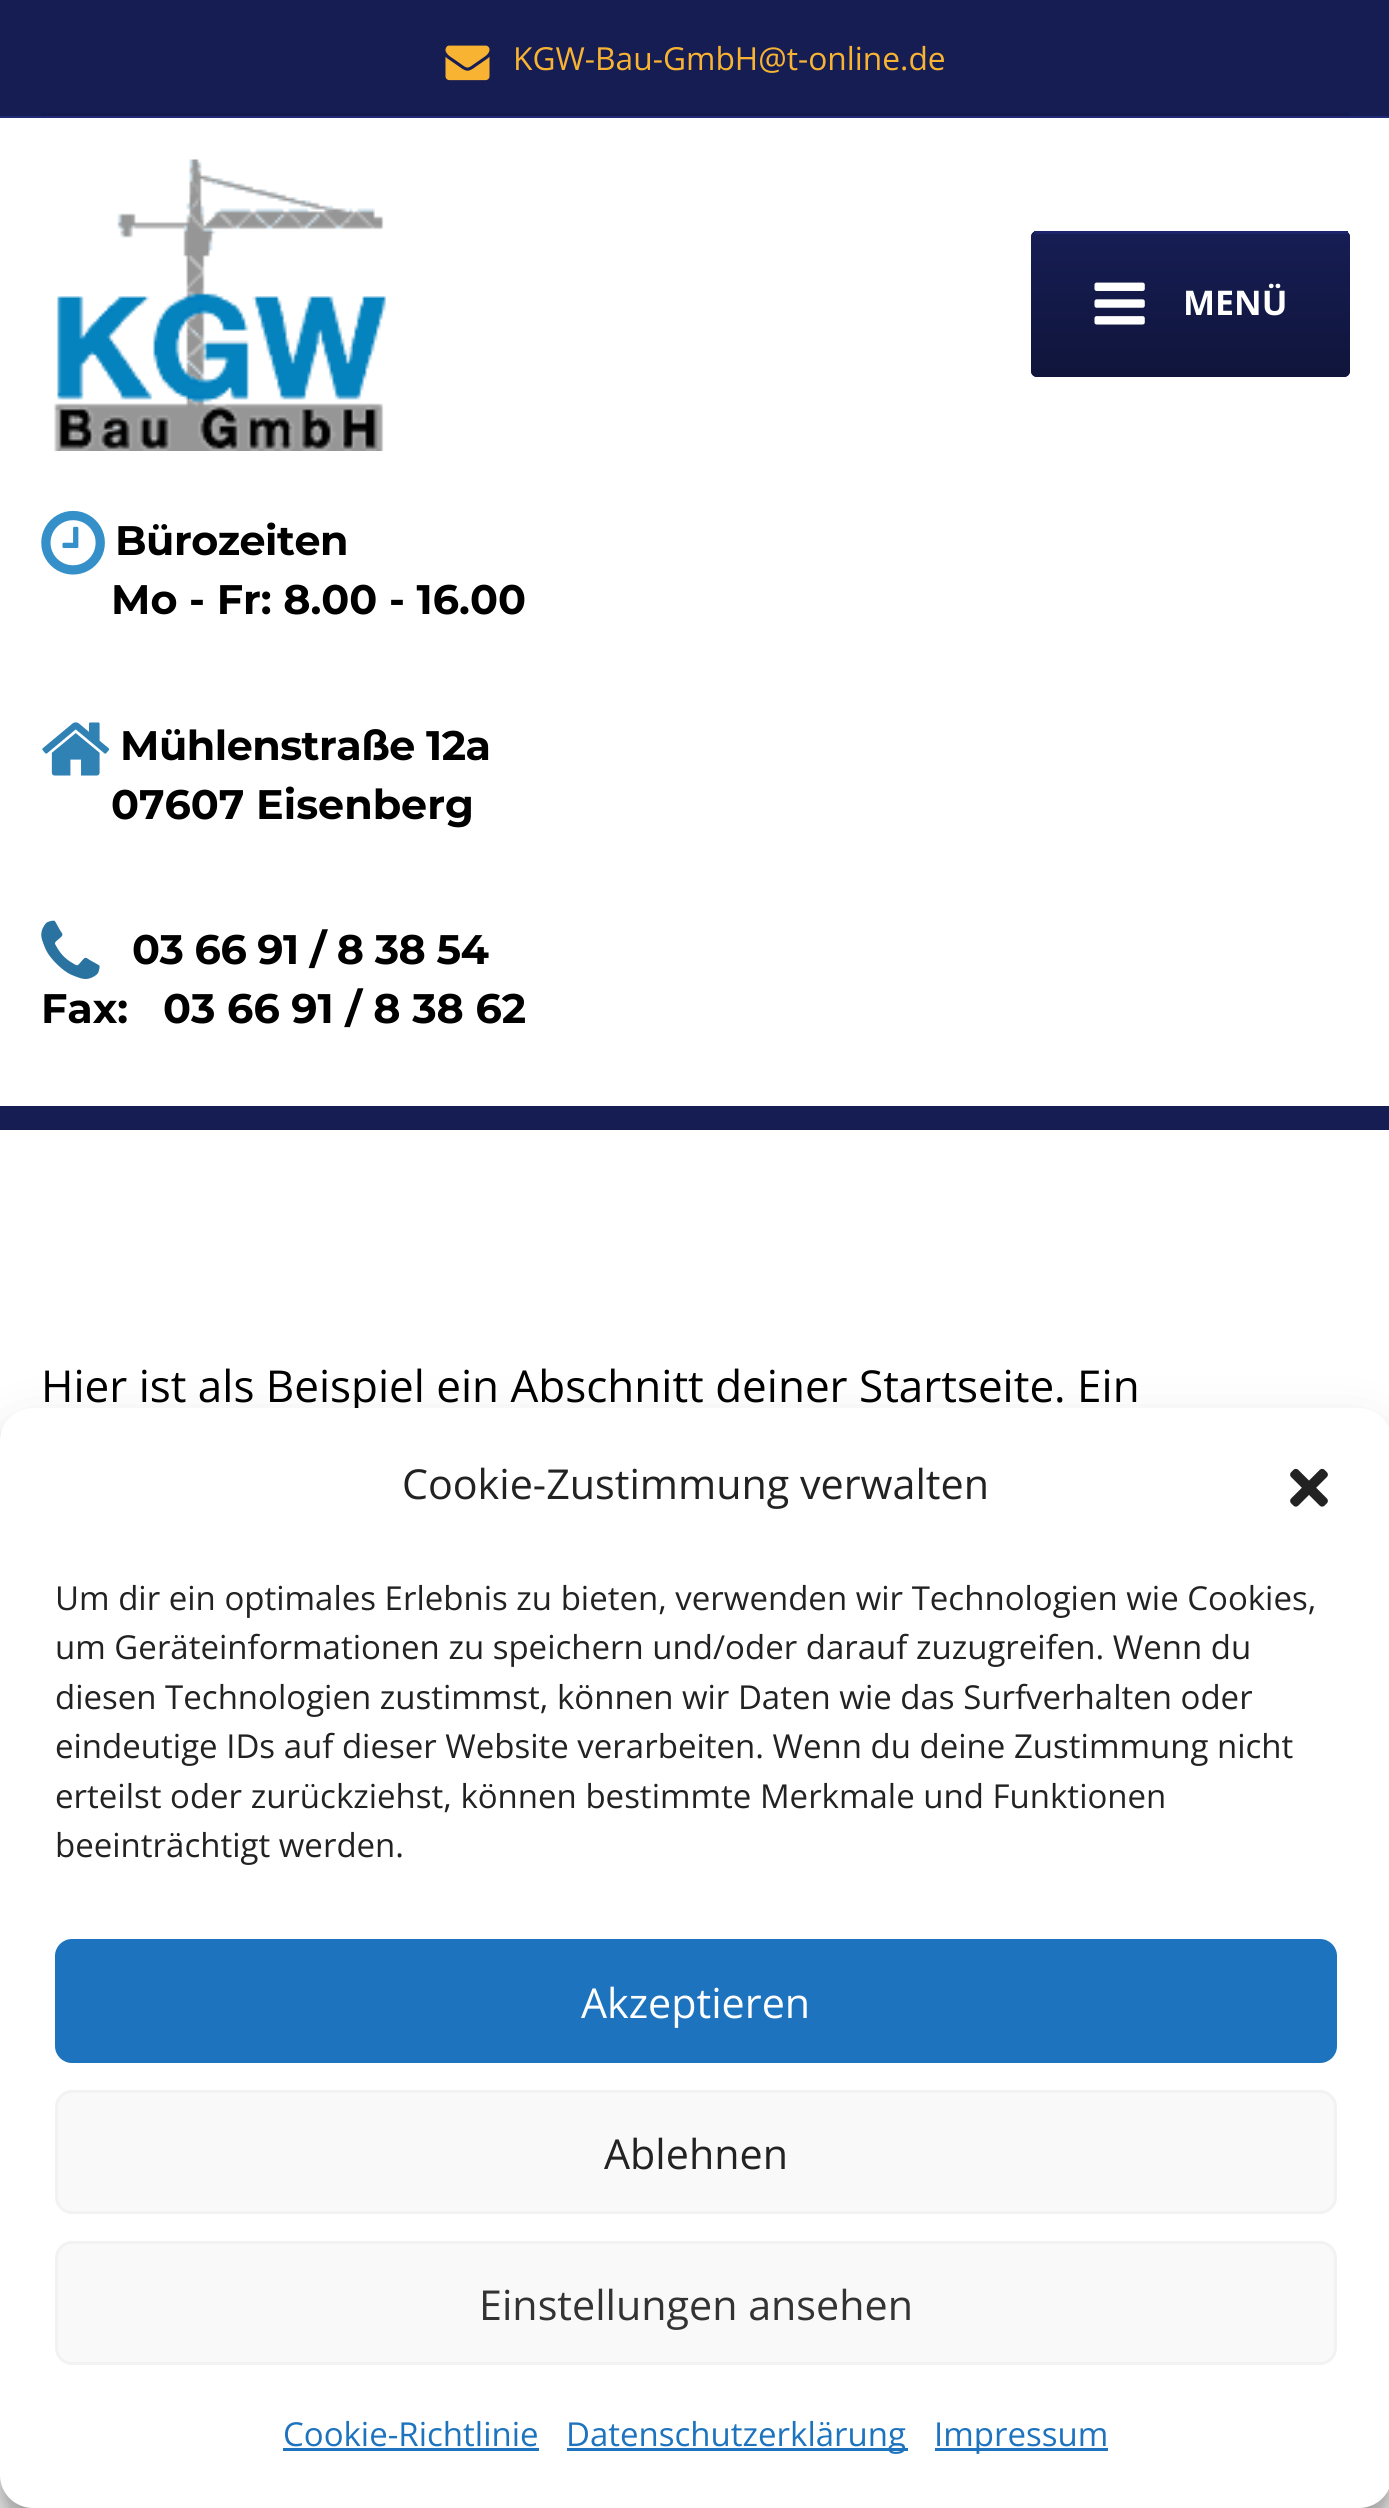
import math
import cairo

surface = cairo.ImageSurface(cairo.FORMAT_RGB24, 1389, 2508)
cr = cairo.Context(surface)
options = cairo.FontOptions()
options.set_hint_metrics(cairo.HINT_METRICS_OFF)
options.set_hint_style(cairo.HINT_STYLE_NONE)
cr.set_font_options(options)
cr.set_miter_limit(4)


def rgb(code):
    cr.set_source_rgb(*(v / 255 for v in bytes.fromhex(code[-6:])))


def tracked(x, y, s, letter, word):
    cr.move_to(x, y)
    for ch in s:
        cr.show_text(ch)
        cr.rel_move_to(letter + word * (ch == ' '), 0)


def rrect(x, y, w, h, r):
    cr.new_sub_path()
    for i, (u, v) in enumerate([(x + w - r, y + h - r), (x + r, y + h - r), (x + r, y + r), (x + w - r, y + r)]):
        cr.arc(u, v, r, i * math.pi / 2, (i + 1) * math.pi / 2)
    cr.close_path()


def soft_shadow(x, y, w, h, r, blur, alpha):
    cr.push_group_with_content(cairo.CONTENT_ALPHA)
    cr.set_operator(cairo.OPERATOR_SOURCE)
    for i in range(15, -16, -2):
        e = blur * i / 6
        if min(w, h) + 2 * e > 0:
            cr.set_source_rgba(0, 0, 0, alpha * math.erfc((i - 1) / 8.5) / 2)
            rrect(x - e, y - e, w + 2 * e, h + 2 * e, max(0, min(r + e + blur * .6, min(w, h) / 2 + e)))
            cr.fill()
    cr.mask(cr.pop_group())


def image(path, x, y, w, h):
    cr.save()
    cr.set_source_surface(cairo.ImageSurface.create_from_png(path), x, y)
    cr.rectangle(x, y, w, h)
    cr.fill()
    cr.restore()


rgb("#ffffff")
cr.paint()
for x, y, w, h, color in [
    (0, 0, 1389, 116, "#161d53"),
    (0, 116, 1389, 2, "#202a77"),
    (41, 113, 1309, 3, "#141a4b"),
]:
    rgb(color)
    cr.rectangle(x, y, w, h)
    cr.fill()
image("img/1.png", 445, 45, 45, 36)
rgb("#161d53")
cr.rectangle(0, 1106, 1389, 24)
cr.fill()
image("img/2.png", 54, 159, 332, 292)
rrect(1031, 231, 319, 146, 6)
cr.fill()
cr.save()
rrect(1031, 231, 319, 146, 6)
cr.clip()
gradient = cairo.LinearGradient(1191, 91, 1191, 234)
gradient.add_color_stop_rgba(0, 0.086, 0.114, 0.325, 1)
gradient.add_color_stop_rgba(1, 0.063, 0.082, 0.231, 1)
cr.set_source(gradient)
cr.rectangle(1031, 231, 319, 3)
cr.fill()
gradient = cairo.LinearGradient(1191, 234, 1191, 377)
gradient.add_color_stop_rgba(0, 0.086, 0.114, 0.325, 1)
gradient.add_color_stop_rgba(1, 0.063, 0.082, 0.231, 1)
cr.set_source(gradient)
cr.new_path()
cr.move_to(1031, 234)
cr.line_to(1350, 234)
cr.line_to(1350, 371)
cr.curve_to(1350, 374.5, 1347.5, 377, 1344, 377)
cr.line_to(1037, 377)
cr.curve_to(1033.5, 377, 1031, 374.5, 1031, 371)
cr.close_path()
cr.fill()
cr.restore()
rgb("#1c256b")
cr.rectangle(1034, 231, 314, 3)
cr.fill()
image("img/3.png", 1094, 282, 51, 43)
image("img/4.png", 41, 510, 64, 65)
image("img/5.png", 42, 722, 68, 54)
image("img/6.png", 41, 920, 59, 59)
rgb("#f7f7f7")
cr.rectangle(0, 2475, 1389, 33)
cr.fill()
rgb("#000000")
soft_shadow(41, 1763, 1309, 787, 0, 14, 0.15)
soft_shadow(0, 1425, 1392, 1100, 33, 8, 0.23)
soft_shadow(0, 1436, 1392, 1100, 33, 27.5, 0.19)
cr.select_font_face("Open Sans")
cr.set_font_size(31.75)
rgb("#f8b332")
cr.move_to(513, 70)
cr.show_text("KGW-Bau-GmbH@t-online.de")
cr.select_font_face("Open Sans", cairo.FONT_SLANT_NORMAL, cairo.FONT_WEIGHT_BOLD)
cr.set_font_size(34)
rgb("#ffffff")
cr.move_to(1183, 315)
cr.show_text("MENÜ")
cr.select_font_face("Montserrat Thin")
cr.set_font_size(41.25)
rgb("#000000")
tracked(115, 555, "Bürozeiten", -0.5, 0)
cr.move_to(111, 614)
cr.show_text("Mo - Fr: 8.00 - 16.00")
tracked(120, 760, "Mühlenstraße 12a", -0.5, 0)
cr.move_to(111, 819)
cr.show_text("07607 Eisenberg")
tracked(132, 964, "03 66 91 / 8 38 54", -0.5, 0)
cr.move_to(41, 1023)
cr.show_text("Fax:")
cr.move_to(163, 1023)
cr.show_text("03 66 91 / 8 38 62")
cr.select_font_face("Open Sans")
cr.set_font_size(44)
cr.move_to(41, 1402)
cr.show_text("Hier ist als Beispiel ein Abschnitt deiner Startseite. Ein")
rgb("#ffffff")
rrect(0, 1408, 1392, 1100, 33)
cr.fill()
cr.set_font_size(41.25)
rgb("#222222")
cr.move_to(402, 1499)
cr.show_text("Cookie-Zustimmung verwalten")
image("img/7.png", 1290, 1468, 38, 39)
cr.set_font_size(33)
for x, y, s in [
    (55, 1610, "Um dir ein optimales Erlebnis zu bieten, verwenden wir Technologien wie Cookies,"),
    (55, 1659, "um Geräteinformationen zu speichern und/oder darauf zuzugreifen. Wenn du"),
    (55, 1709, "diesen Technologien zustimmst, können wir Daten wie das Surfverhalten oder"),
    (55, 1758, "eindeutige IDs auf dieser Website verarbeiten. Wenn du deine Zustimmung nicht"),
    (55, 1808, "erteilst oder zurückziehst, können bestimmte Merkmale und Funktionen"),
    (55, 1857, "beeinträchtigt werden."),
]:
    cr.move_to(x, y)
    cr.show_text(s)
rgb("#1e73be")
rrect(56.5, 1940.5, 1279, 121, 15.5)
cr.fill_preserve()
cr.set_line_width(3)
cr.stroke()
cr.set_font_size(41.25)
rgb("#ffffff")
cr.move_to(581, 2018)
cr.show_text("Akzeptieren")
rgb("#f9f9f9")
rrect(56.5, 2091.5, 1279, 121, 15.5)
cr.fill_preserve()
rgb("#f2f2f2")
cr.stroke()
rgb("#222222")
cr.move_to(604, 2169)
cr.show_text("Ablehnen")
rgb("#f9f9f9")
rrect(56.5, 2242.5, 1279, 121, 15.5)
cr.fill_preserve()
rgb("#f2f2f2")
cr.stroke()
rgb("#333333")
cr.move_to(479, 2320)
cr.show_text("Einstellungen ansehen")
cr.set_font_size(33)
rgb("#1e73be")
cr.move_to(283, 2446)
cr.show_text("Cookie-Richtlinie")
cr.rectangle(283, 2448, 256, 3)
cr.fill()
cr.rectangle(567, 2448, 341, 3)
cr.fill()
cr.move_to(566, 2446)
cr.show_text("Datenschutzerklärung")
cr.rectangle(935, 2448, 173, 3)
cr.fill()
cr.move_to(934, 2446)
cr.show_text("Impressum")
surface.write_to_png("page.png")
